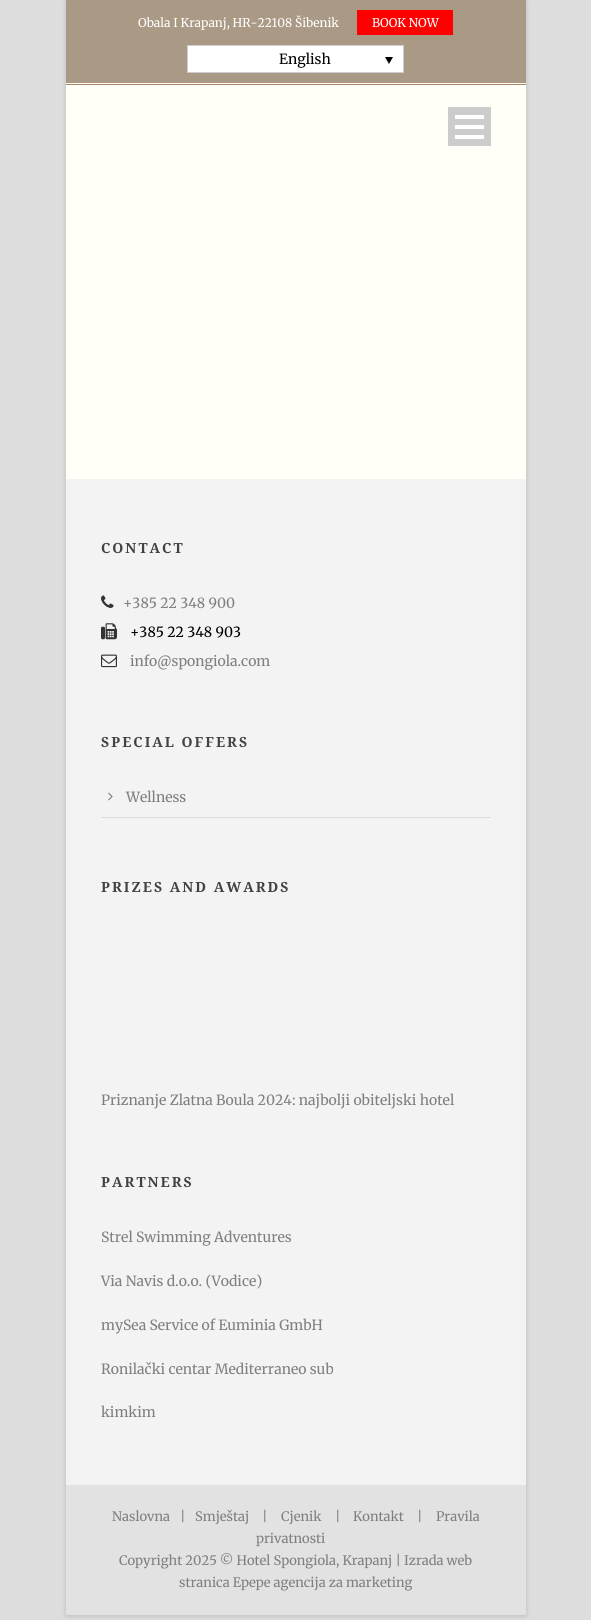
import math
import cairo

surface = cairo.ImageSurface(cairo.FORMAT_RGB24, 591, 1620)
cr = cairo.Context(surface)
options = cairo.FontOptions()
options.set_hint_metrics(cairo.HINT_METRICS_OFF)
options.set_hint_style(cairo.HINT_STYLE_NONE)
cr.set_font_options(options)
cr.set_miter_limit(4)


def rgb(code):
    cr.set_source_rgb(*(v / 255 for v in bytes.fromhex(code[-6:])))


def tracked(x, y, s, letter, word):
    cr.move_to(x, y)
    for ch in s:
        cr.show_text(ch)
        cr.rel_move_to(letter + word * (ch == ' '), 0)


def rrect(x, y, w, h, r):
    cr.new_sub_path()
    for i, (u, v) in enumerate([(x + w - r, y + h - r), (x + r, y + h - r), (x + r, y + r), (x + w - r, y + r)]):
        cr.arc(u, v, r, i * math.pi / 2, (i + 1) * math.pi / 2)
    cr.close_path()


def soft_shadow(x, y, w, h, r, blur, alpha):
    cr.push_group_with_content(cairo.CONTENT_ALPHA)
    cr.set_operator(cairo.OPERATOR_SOURCE)
    for i in range(15, -16, -2):
        e = blur * i / 6
        if min(w, h) + 2 * e > 0:
            cr.set_source_rgba(0, 0, 0, alpha * math.erfc((i - 1) / 8.5) / 2)
            rrect(x - e, y - e, w + 2 * e, h + 2 * e, max(0, min(r + e + blur * .6, min(w, h) / 2 + e)))
            cr.fill()
    cr.mask(cr.pop_group())


def image(path, x, y, w, h):
    cr.save()
    cr.set_source_surface(cairo.ImageSurface.create_from_png(path), x, y)
    cr.rectangle(x, y, w, h)
    cr.fill()
    cr.restore()


rgb("#dddddd")
cr.paint()
rgb("#000000")
soft_shadow(66, 1, 460, 1615, 0, 2.5, 0.15)
for x, y, w, h, color in [
    (66, 83, 460, 396, "#fffff7"),
    (66, 0, 460, 83, "#aa9985"),
    (357, 10, 96, 25, "#ff0000"),
]:
    rgb(color)
    cr.rectangle(x, y, w, h)
    cr.fill()
rgb("#ffffff")
cr.rectangle(187.5, 45.5, 216, 27)
cr.fill_preserve()
rgb("#cdcdcd")
cr.set_line_width(1)
cr.stroke()
rgb("#000000")
cr.new_path()
cr.move_to(385, 57)
cr.line_to(393, 57)
cr.line_to(389, 64)
cr.close_path()
cr.fill()
for x, y, w, h, color in [
    (66, 84, 460, 1, "#aa8667"),
    (448, 107, 43, 39, "#cccccc"),
    (455, 135, 29, 4, "#ffffff"),
    (455, 125, 29, 4, "#ffffff"),
    (455, 115, 29, 4, "#ffffff"),
    (66, 479, 460, 1006, "#f3f3f3"),
]:
    rgb(color)
    cr.rectangle(x, y, w, h)
    cr.fill()
image("img/1.png", 101, 595, 13, 13)
image("img/2.png", 101, 623, 16, 17)
image("img/3.png", 101, 654, 16, 14)
rgb("#dbdbdb")
cr.rectangle(101, 817, 390, 1)
cr.fill()
image("img/4.png", 108, 792, 5, 9)
rgb("#e2e2e2")
cr.rectangle(66, 1485, 460, 130)
cr.fill()
cr.select_font_face("Merriweather")
cr.set_font_size(12)
rgb("#ffffff")
cr.move_to(138, 27)
cr.show_text("Obala I Krapanj, HR-22108 Šibenik")
cr.move_to(372, 27)
cr.show_text("BOOK NOW")
cr.set_font_size(14)
rgb("#000000")
cr.move_to(279, 64)
cr.show_text("English")
cr.select_font_face("Droid Serif", cairo.FONT_SLANT_NORMAL, cairo.FONT_WEIGHT_BOLD)
rgb("#424242")
tracked(101, 553, "CONTACT", 2, 0)
cr.select_font_face("Merriweather")
rgb("#7f7f7f")
cr.move_to(123, 608)
cr.show_text("+385 22 348 900")
rgb("#000000")
cr.move_to(130, 637)
cr.show_text("+385 22 348 903")
rgb("#7f7f7f")
cr.move_to(130, 666)
cr.show_text("info@spongiola.com")
cr.select_font_face("Droid Serif", cairo.FONT_SLANT_NORMAL, cairo.FONT_WEIGHT_BOLD)
rgb("#424242")
tracked(101, 747, "SPECIAL OFFERS", 2, 0)
cr.select_font_face("Merriweather")
rgb("#7f7f7f")
cr.move_to(126, 802)
cr.show_text("Wellness")
cr.select_font_face("Droid Serif", cairo.FONT_SLANT_NORMAL, cairo.FONT_WEIGHT_BOLD)
rgb("#424242")
tracked(101, 892, "PRIZES AND AWARDS", 2, 0)
cr.select_font_face("Merriweather")
rgb("#7f7f7f")
cr.move_to(101, 1105)
cr.show_text("Priznanje Zlatna Boula 2024: najbolji obiteljski hotel")
cr.select_font_face("Droid Serif", cairo.FONT_SLANT_NORMAL, cairo.FONT_WEIGHT_BOLD)
rgb("#424242")
tracked(101, 1187, "PARTNERS", 2, 0)
cr.select_font_face("Merriweather")
rgb("#7f7f7f")
for x, y, s in [
    (101, 1242, "Strel Swimming Adventures"),
    (101, 1286, "Via Navis d.o.o. (Vodice)"),
    (101, 1330, "mySea Service of Euminia GmbH"),
    (101, 1374, "Ronilački centar Mediterraneo sub"),
    (101, 1417, "kimkim"),
]:
    cr.move_to(x, y)
    cr.show_text(s)
cr.set_font_size(13)
for x, y, s in [
    (112, 1521, "Naslovna"),
    (180, 1521, "|"),
    (195, 1521, "Smještaj"),
    (262, 1521, "|"),
    (281, 1521, "Cjenik"),
    (335, 1521, "|"),
    (353, 1521, "Kontakt"),
    (417, 1521, "|"),
    (436, 1521, "Pravila"),
    (256, 1543, "privatnosti"),
    (119, 1565, "Copyright 2025 © Hotel Spongiola, Krapanj | Izrada web"),
    (179, 1587, "stranica Epepe agencija za marketing"),
]:
    cr.move_to(x, y)
    cr.show_text(s)
surface.write_to_png("page.png")
